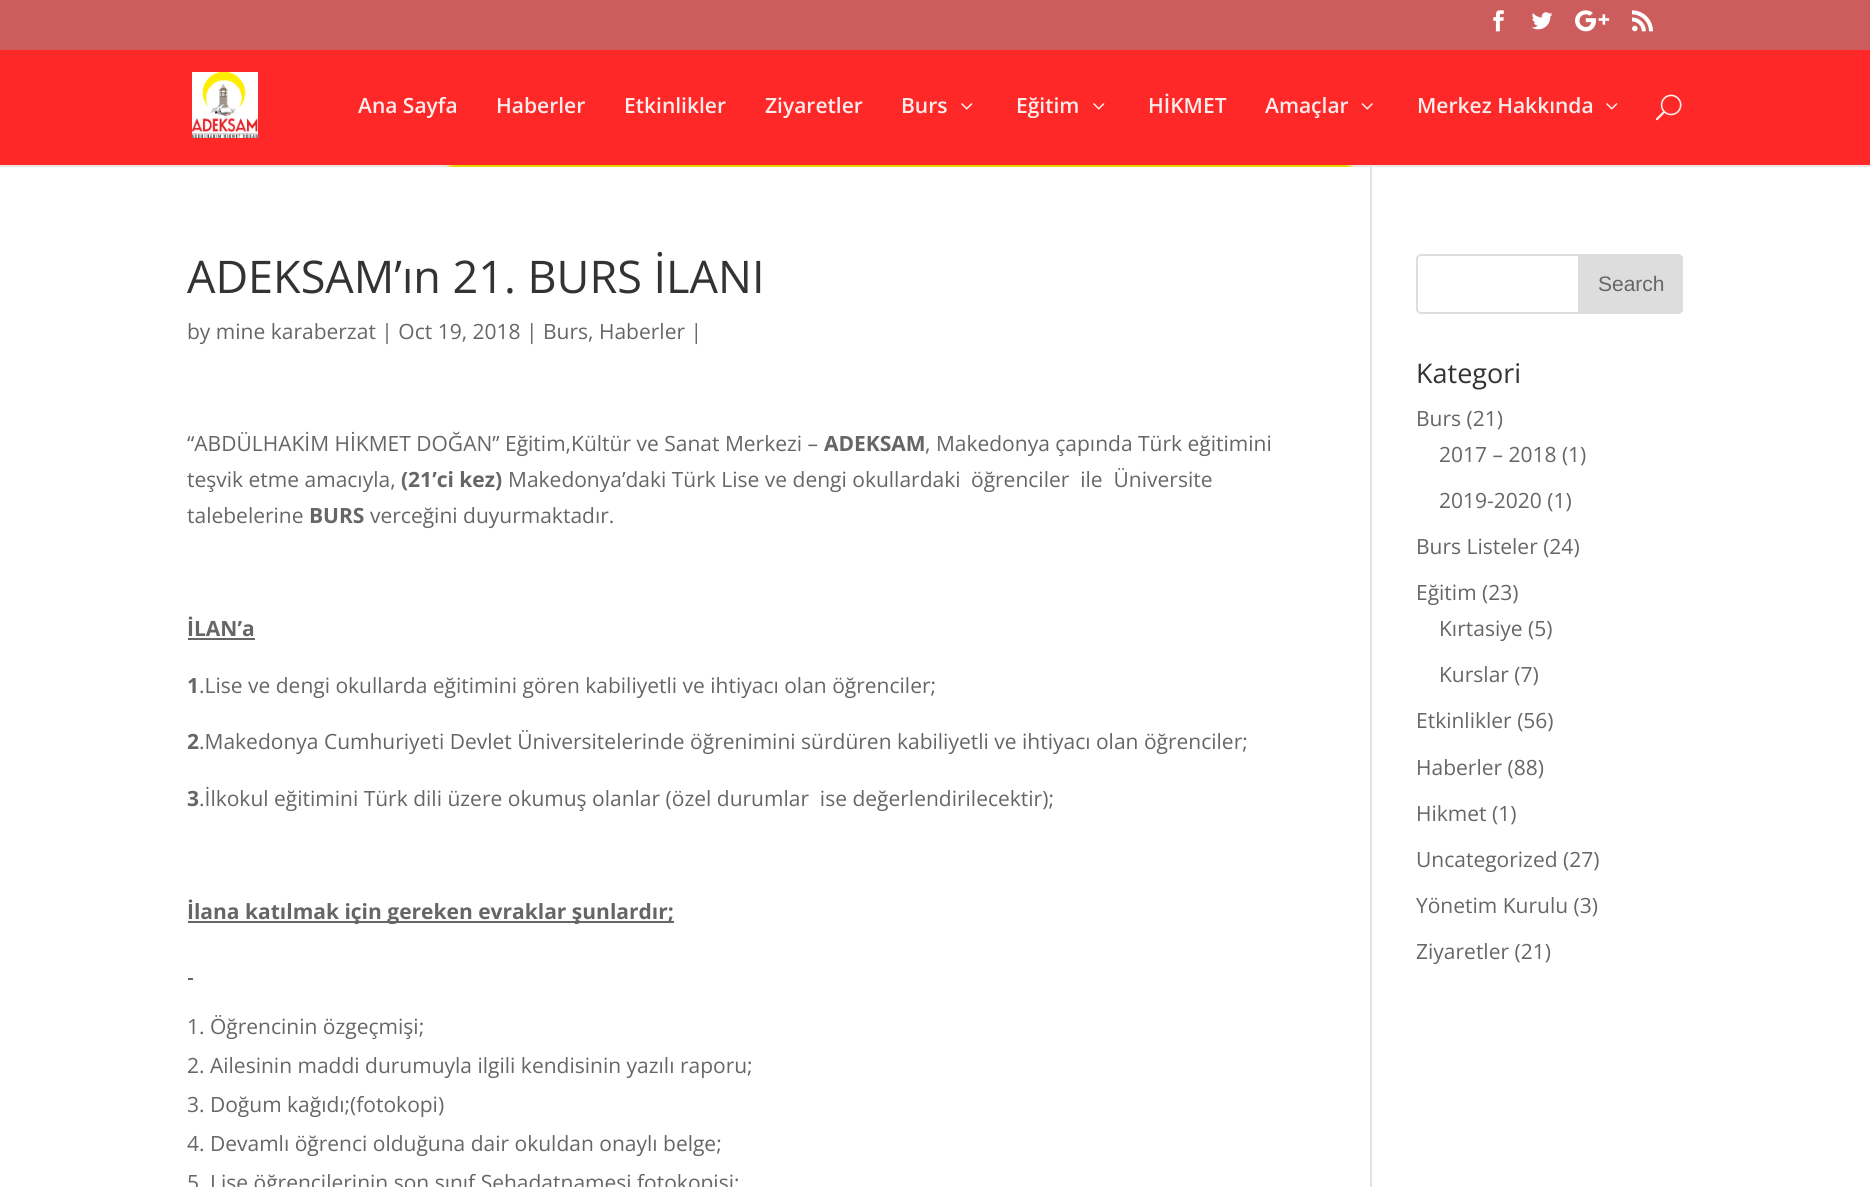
import math
import cairo

surface = cairo.ImageSurface(cairo.FORMAT_RGB24, 1870, 1187)
cr = cairo.Context(surface)
options = cairo.FontOptions()
options.set_hint_metrics(cairo.HINT_METRICS_OFF)
options.set_hint_style(cairo.HINT_STYLE_NONE)
cr.set_font_options(options)
cr.set_miter_limit(4)


def rgb(code):
    cr.set_source_rgb(*(v / 255 for v in bytes.fromhex(code[-6:])))


def rrect(x, y, w, h, r):
    cr.new_sub_path()
    for i, (u, v) in enumerate([(x + w - r, y + h - r), (x + r, y + h - r), (x + r, y + r), (x + w - r, y + r)]):
        cr.arc(u, v, r, i * math.pi / 2, (i + 1) * math.pi / 2)
    cr.close_path()


def image(path, x, y, w, h):
    cr.save()
    cr.set_source_surface(cairo.ImageSurface.create_from_png(path), x, y)
    cr.rectangle(x, y, w, h)
    cr.fill()
    cr.restore()


rgb("#ffffff")
cr.paint()
image("img/1.png", 218, 165, 1363, 2)
rgb("#cd5c5c")
cr.rectangle(0, 0, 1870, 50)
cr.fill()
image("img/2.png", 1493, 10, 11, 22)
image("img/3.png", 1531, 12, 22, 18)
image("img/4.png", 1575, 10, 35, 22)
image("img/5.png", 1632, 10, 21, 22)
cr.set_source_rgba(0, 0, 0, 0.1)
cr.new_path()
cr.move_to(0, 165)
cr.line_to(0, 167)
cr.line_to(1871, 167)
cr.line_to(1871, 47)
cr.line_to(1870, 47)
cr.line_to(1870, 165)
cr.close_path()
cr.fill()
rgb("#ff2828")
cr.rectangle(0, 50, 1870, 115)
cr.fill()
image("img/6.png", 192, 72, 66, 66)
image("img/7.png", 961, 103, 12, 7)
image("img/7.png", 1093, 103, 12, 7)
image("img/8.png", 1361, 103, 12, 7)
image("img/7.png", 1606, 103, 12, 7)
image("img/9.png", 1655, 94, 27, 27)
for x, y, w, h, color in [
    (1370, 167, 2, 1020, "#e2e2e2"),
    (188, 638, 67, 2, "#666666"),
    (188, 921, 486, 2, "#666666"),
    (188, 978, 5, 2, "#666666"),
]:
    rgb(color)
    cr.rectangle(x, y, w, h)
    cr.fill()
rrect(1417, 255, 265, 58, 4)
rgb("#dddddd")
cr.stroke()
cr.new_path()
cr.move_to(1579, 255)
cr.line_to(1678, 255)
cr.curve_to(1680, 255, 1682, 257, 1682, 259)
cr.line_to(1682, 309)
cr.curve_to(1682, 311, 1680, 313, 1678, 313)
cr.line_to(1579, 313)
cr.close_path()
cr.fill_preserve()
cr.stroke()
cr.select_font_face("Open Sans SemiBold")
cr.set_font_size(21)
rgb("#fceded")
for x, y, s in [
    (358, 113, "Ana Sayfa"),
    (496, 113, "Haberler"),
    (624, 113, "Etkinlikler"),
    (765, 113, "Ziyaretler"),
    (901, 113, "Burs"),
    (1016, 113, "Eğitim"),
    (1148, 113, "HİKMET"),
    (1265, 113, "Amaçlar"),
    (1417, 113, "Merkez Hakkında"),
]:
    cr.move_to(x, y)
    cr.show_text(s)
cr.select_font_face("Open Sans")
cr.set_font_size(45)
rgb("#333333")
cr.move_to(187, 293)
cr.show_text("ADEKSAM’ın 21. BURS İLANI")
cr.set_font_size(21)
rgb("#666666")
cr.move_to(187, 339)
cr.show_text("by mine karaberzat | Oct 19, 2018 | Burs, Haberler |")
cr.move_to(187, 451)
cr.show_text("“ABDÜLHAKİM HİKMET DOĞAN” Eğitim,Kültür ve Sanat Merkezi –")
cr.select_font_face("Open Sans", cairo.FONT_SLANT_NORMAL, cairo.FONT_WEIGHT_BOLD)
cr.move_to(824, 451)
cr.show_text("ADEKSAM")
cr.select_font_face("Open Sans")
cr.move_to(925, 451)
cr.show_text(", Makedonya çapında Türk eğitimini")
cr.move_to(187, 487)
cr.show_text("teşvik etme amacıyla,")
cr.select_font_face("Open Sans", cairo.FONT_SLANT_NORMAL, cairo.FONT_WEIGHT_BOLD)
cr.move_to(401, 487)
cr.show_text("(21’ci kez)")
cr.select_font_face("Open Sans")
for x, y, s in [
    (508, 487, "Makedonya’daki Türk Lise ve dengi okullardaki"),
    (971, 487, "öğrenciler  ile  Üniversite"),
    (187, 523, "talebelerine"),
]:
    cr.move_to(x, y)
    cr.show_text(s)
cr.select_font_face("Open Sans", cairo.FONT_SLANT_NORMAL, cairo.FONT_WEIGHT_BOLD)
cr.move_to(309, 523)
cr.show_text("BURS")
cr.select_font_face("Open Sans")
cr.move_to(370, 523)
cr.show_text("verceğini duyurmaktadır.")
cr.select_font_face("Open Sans", cairo.FONT_SLANT_NORMAL, cairo.FONT_WEIGHT_BOLD)
cr.move_to(187, 636)
cr.show_text("İLAN’a")
cr.move_to(187, 693)
cr.show_text("1")
cr.select_font_face("Open Sans")
cr.move_to(199, 693)
cr.show_text(".Lise ve dengi okullarda eğitimini gören kabiliyetli ve ihtiyacı olan öğrenciler;")
cr.select_font_face("Open Sans", cairo.FONT_SLANT_NORMAL, cairo.FONT_WEIGHT_BOLD)
cr.move_to(187, 749)
cr.show_text("2")
cr.select_font_face("Open Sans")
cr.move_to(199, 749)
cr.show_text(".Makedonya Cumhuriyeti Devlet Üniversitelerinde öğrenimini sürdüren kabiliyetli ve ihtiyacı olan öğrenciler;")
cr.select_font_face("Open Sans", cairo.FONT_SLANT_NORMAL, cairo.FONT_WEIGHT_BOLD)
cr.move_to(187, 806)
cr.show_text("3")
cr.select_font_face("Open Sans")
cr.move_to(199, 806)
cr.show_text(".İlkokul eğitimini Türk dili üzere okumuş olanlar (özel durumlar  ise değerlendirilecektir);")
cr.select_font_face("Open Sans", cairo.FONT_SLANT_NORMAL, cairo.FONT_WEIGHT_BOLD)
cr.move_to(187, 919)
cr.show_text("İlana katılmak için gereken evraklar şunlardır;")
cr.select_font_face("Open Sans")
for x, y, s in [
    (187, 1034, "1. Öğrencinin özgeçmişi;"),
    (187, 1073, "2. Ailesinin maddi durumuyla ilgili kendisinin yazılı raporu;"),
    (187, 1112, "3. Doğum kağıdı;(fotokopi)"),
    (187, 1151, "4. Devamlı öğrenci olduğuna dair okuldan onaylı belge;"),
    (187, 1190, "5"),
    (210, 1190, "Lise öğrencilerinin son sınıf Şehadatnamesi fotokopisi;"),
]:
    cr.move_to(x, y)
    cr.show_text(s)
cr.select_font_face("Liberation Sans")
cr.move_to(1598, 291)
cr.show_text("Search")
cr.select_font_face("Open Sans")
cr.set_font_size(27)
rgb("#333333")
cr.move_to(1416, 383)
cr.show_text("Kategori")
cr.set_font_size(21)
rgb("#666666")
for x, y, s in [
    (1416, 426, "Burs (21)"),
    (1439, 462, "2017 – 2018 (1)"),
    (1439, 508, "2019-2020 (1)"),
    (1416, 554, "Burs Listeler (24)"),
    (1416, 600, "Eğitim (23)"),
    (1439, 636, "Kırtasiye (5)"),
    (1439, 682, "Kurslar (7)"),
    (1416, 728, "Etkinlikler (56)"),
    (1416, 775, "Haberler (88)"),
    (1416, 821, "Hikmet (1)"),
    (1416, 867, "Uncategorized (27)"),
    (1416, 913, "Yönetim Kurulu (3)"),
    (1416, 959, "Ziyaretler (21)"),
]:
    cr.move_to(x, y)
    cr.show_text(s)
surface.write_to_png("page.png")
